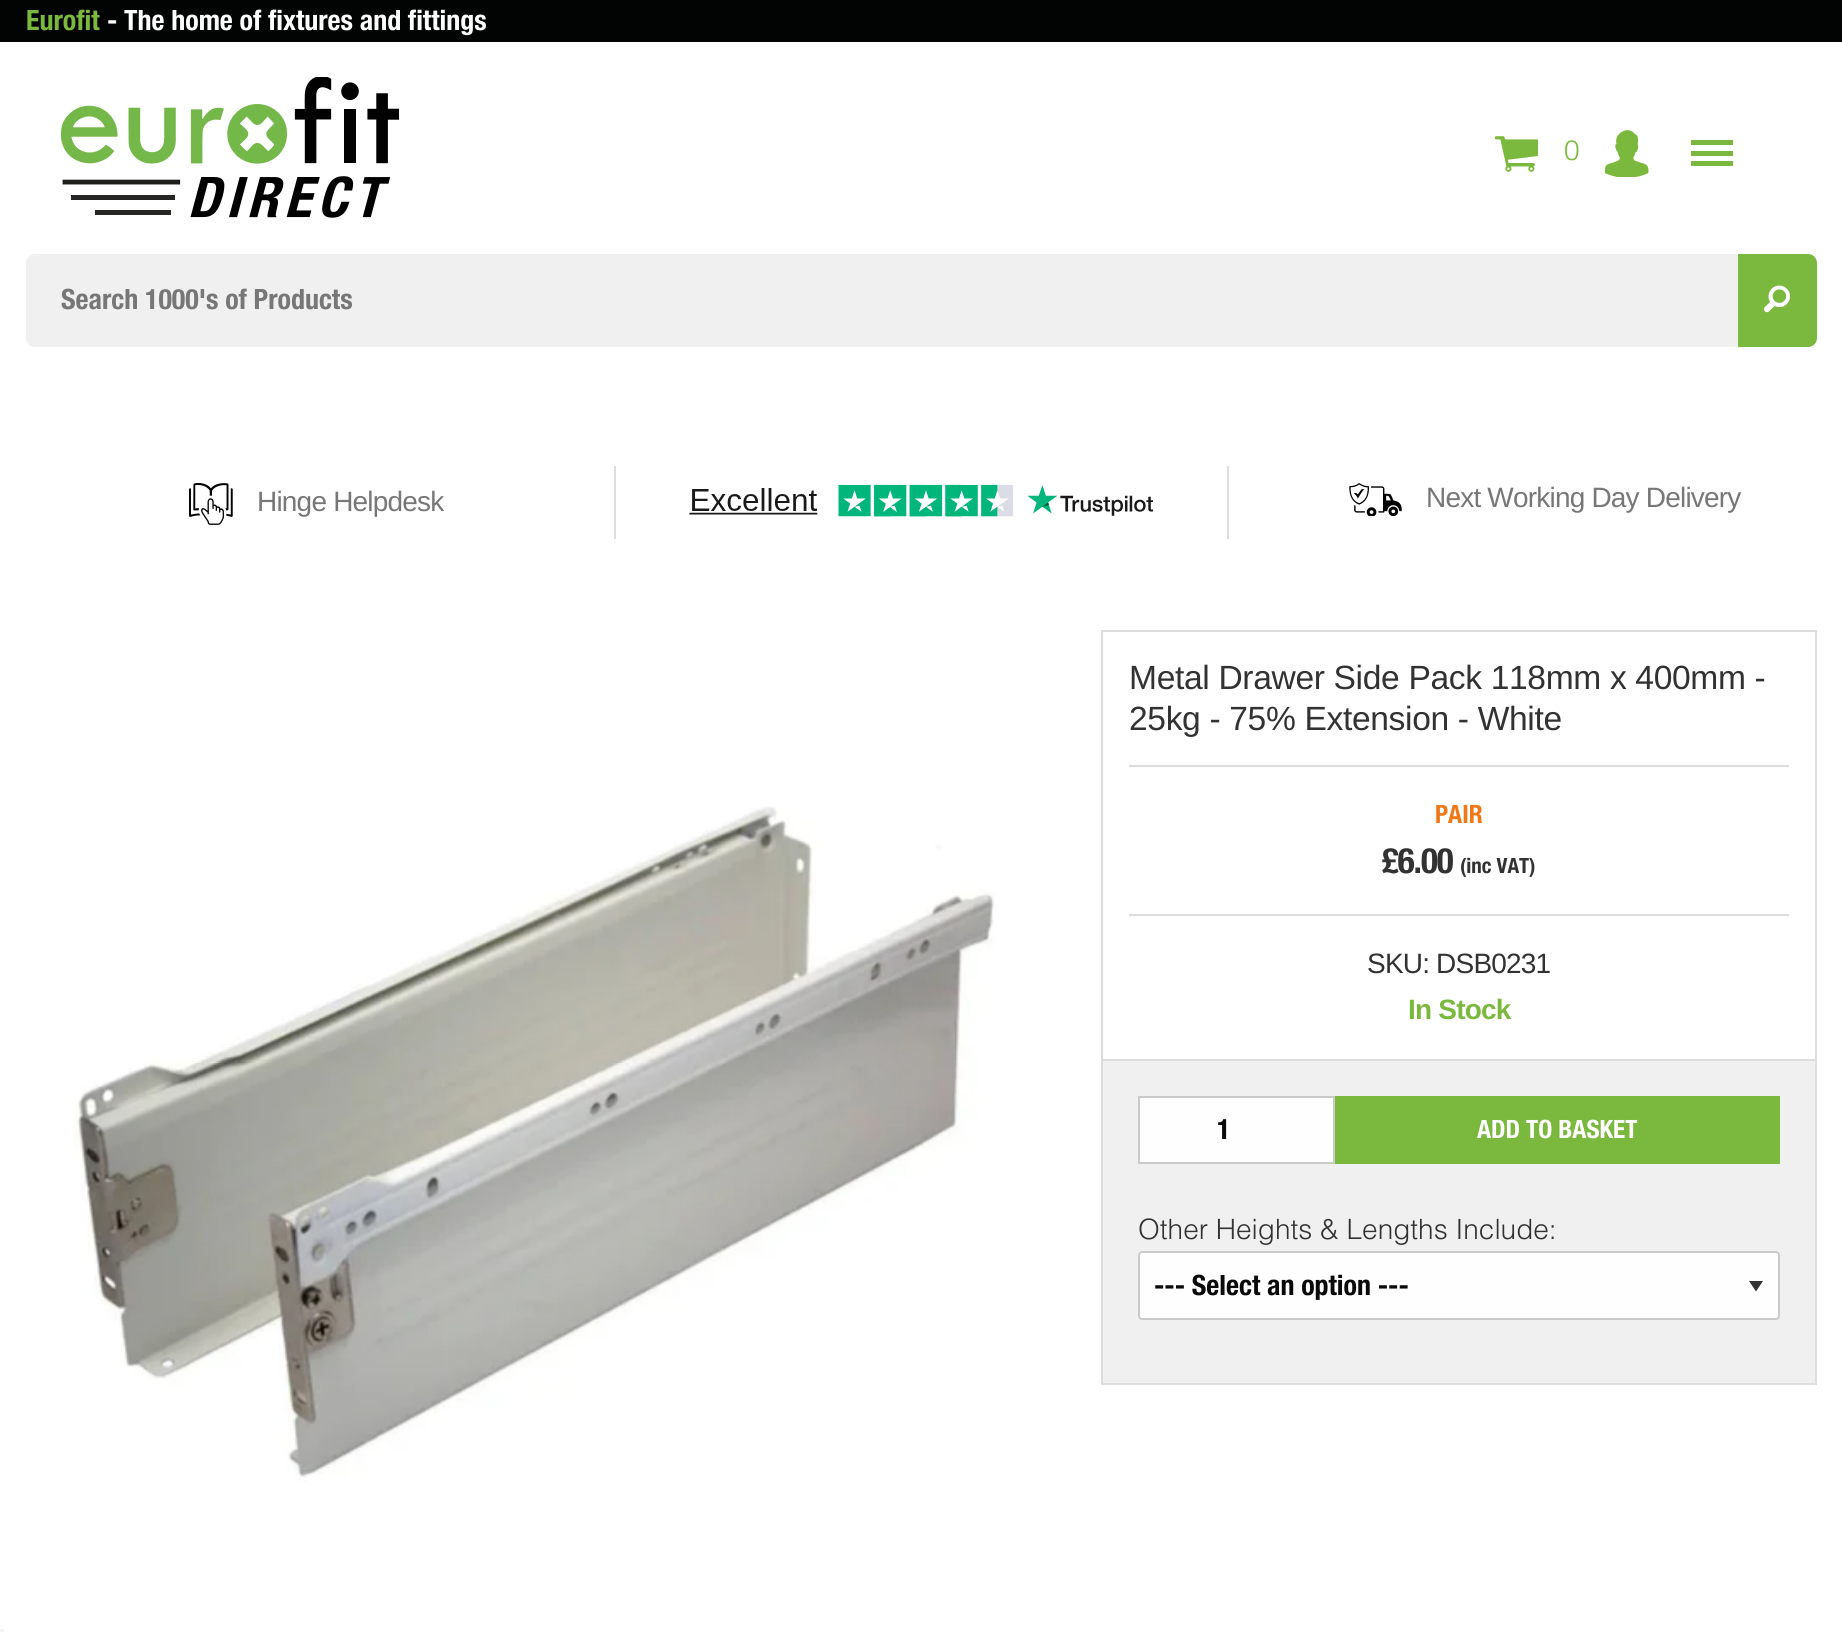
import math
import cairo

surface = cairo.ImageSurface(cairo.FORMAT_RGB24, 1842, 1632)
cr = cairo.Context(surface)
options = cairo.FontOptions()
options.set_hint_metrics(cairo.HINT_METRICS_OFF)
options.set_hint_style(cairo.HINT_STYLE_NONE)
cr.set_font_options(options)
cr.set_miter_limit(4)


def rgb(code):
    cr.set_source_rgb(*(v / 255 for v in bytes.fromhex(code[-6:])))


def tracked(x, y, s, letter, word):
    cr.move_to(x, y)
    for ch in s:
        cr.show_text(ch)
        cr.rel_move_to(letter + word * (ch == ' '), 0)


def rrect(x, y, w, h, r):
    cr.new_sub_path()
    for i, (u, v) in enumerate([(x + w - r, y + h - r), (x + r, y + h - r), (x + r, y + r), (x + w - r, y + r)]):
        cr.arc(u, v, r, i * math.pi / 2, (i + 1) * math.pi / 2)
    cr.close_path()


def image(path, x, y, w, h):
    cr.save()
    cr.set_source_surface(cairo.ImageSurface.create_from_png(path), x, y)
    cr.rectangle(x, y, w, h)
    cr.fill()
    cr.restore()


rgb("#ffffff")
cr.paint()
rgb("#020303")
cr.rectangle(0, 0, 1842, 42)
cr.fill()
image("img/1.png", 1495, 136, 43, 36)
image("img/2.png", 1605, 130, 44, 47)
for x, y, w, h, color in [
    (1691, 151, 42, 5, "#7ab93d"),
    (1691, 140, 42, 5, "#7ab93d"),
    (1691, 161, 42, 5, "#7ab93d"),
]:
    rgb(color)
    cr.rectangle(x, y, w, h)
    cr.fill()
image("img/3.png", 61, 77, 338, 141)
rgb("#f0f0f0")
cr.new_path()
cr.move_to(35, 254)
cr.line_to(1738, 254)
cr.line_to(1738, 347)
cr.line_to(35, 347)
cr.curve_to(30, 347, 26, 343, 26, 338)
cr.line_to(26, 263)
cr.curve_to(26, 258, 30, 254, 35, 254)
cr.close_path()
cr.fill()
rgb("#7ab93d")
cr.new_path()
cr.move_to(1738, 254)
cr.line_to(1808, 254)
cr.curve_to(1813, 254, 1817, 258, 1817, 263)
cr.line_to(1817, 338)
cr.curve_to(1817, 343, 1813, 347, 1808, 347)
cr.line_to(1738, 347)
cr.close_path()
cr.fill()
image("img/4.png", 1764, 285, 27, 28)
image("img/5.png", 189, 483, 44, 42)
rgb("#dddddd")
cr.rectangle(1227, 466, 2, 73)
cr.fill()
cr.rectangle(614, 466, 2, 73)
cr.fill()
image("img/6.png", 689, 484, 464, 33)
image("img/7.png", 1349, 483, 53, 33)
image("img/8.png", 73, 806, 922, 676)
cr.rectangle(1102, 631, 714, 429)
cr.stroke()
for x, y, w, h, color in [
    (1129, 765, 660, 2, "#dddddd"),
    (1129, 914, 660, 2, "#dddddd"),
    (1103, 1061, 712, 322, "#f0f0f0"),
    (1815, 1061, 2, 323, "#dddddd"),
    (1101, 1383, 716, 2, "#dddddd"),
    (1101, 1061, 2, 323, "#dddddd"),
]:
    rgb(color)
    cr.rectangle(x, y, w, h)
    cr.fill()
rgb("#fefefe")
cr.rectangle(1139, 1097, 195, 66)
cr.fill_preserve()
rgb("#cacaca")
cr.stroke()
rgb("#7ab93d")
cr.rectangle(1335, 1096, 445, 68)
cr.fill()
rgb("#fefefe")
rrect(1138, 1251, 642, 69, 4)
cr.fill()
rgb("#333333")
cr.new_path()
cr.move_to(1749, 1281)
cr.line_to(1763, 1281)
cr.line_to(1756, 1291.5)
cr.close_path()
cr.fill()
rrect(1139, 1252, 640, 67, 3)
rgb("#cacaca")
cr.stroke()
rgb("#f5f5f5")
cr.rectangle(0, 1629, 4, 3)
cr.fill()
cr.select_font_face("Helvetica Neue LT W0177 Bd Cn", cairo.FONT_SLANT_NORMAL, cairo.FONT_WEIGHT_BOLD)
cr.set_font_size(28)
rgb("#7ab93d")
cr.move_to(26, 30)
cr.show_text("Eurofit")
rgb("#ffffff")
cr.move_to(107, 30)
cr.show_text("- The home of fixtures and fittings")
cr.select_font_face("Helvetica Light")
rgb("#7ab93d")
cr.move_to(1564, 160)
cr.show_text("0")
cr.select_font_face("Helvetica Neue LT W0177 Bd Cn", cairo.FONT_SLANT_NORMAL, cairo.FONT_WEIGHT_BOLD)
rgb("#777777")
cr.move_to(61, 309)
cr.show_text("Search 1000's of Products")
cr.select_font_face("Liberation Sans")
tracked(257, 511, "Hinge Helpdesk", -0.8, 0)
tracked(1426, 507, "Next Working Day Delivery", -0.8, 0)
cr.set_font_size(33.6)
rgb("#323232")
tracked(1129, 689, "Metal Drawer Side Pack 118mm x 400mm -", -0.35, 0)
tracked(1129, 730, "25kg - 75% Extension - White", -0.35, 0)
cr.select_font_face("Helvetica Neue LT W0177 Bd Cn", cairo.FONT_SLANT_NORMAL, cairo.FONT_WEIGHT_BOLD)
cr.set_font_size(25.25)
rgb("#ef7817")
cr.move_to(1435, 823)
cr.show_text("PAIR")
cr.set_font_size(35)
rgb("#323232")
tracked(1382, 873, "£6.00", -1, 0)
cr.set_font_size(21)
cr.move_to(1460, 873)
cr.show_text("(inc VAT)")
cr.select_font_face("Liberation Sans")
cr.set_font_size(28)
tracked(1367, 973, "SKU: DSB0231", -0.8, 0)
cr.select_font_face("Liberation Sans", cairo.FONT_SLANT_NORMAL, cairo.FONT_WEIGHT_BOLD)
rgb("#7ab93d")
tracked(1408, 1019, "In Stock", -0.8, 0)
cr.select_font_face("Helvetica Neue LT W0177 Bd Cn", cairo.FONT_SLANT_NORMAL, cairo.FONT_WEIGHT_BOLD)
rgb("#0a0a0a")
cr.move_to(1217, 1139)
cr.show_text("1")
cr.set_font_size(25.25)
rgb("#ffffff")
cr.move_to(1477, 1138)
cr.show_text("ADD TO BASKET")
cr.select_font_face("Helvetica Light")
cr.set_font_size(28)
rgb("#323232")
cr.move_to(1138, 1239)
cr.show_text("Other Heights & Lengths Include:")
cr.select_font_face("Helvetica Neue LT W0177 Bd Cn", cairo.FONT_SLANT_NORMAL, cairo.FONT_WEIGHT_BOLD)
rgb("#0a0a0a")
cr.move_to(1154, 1295)
cr.show_text("--- Select an option ---")
surface.write_to_png("page.png")
